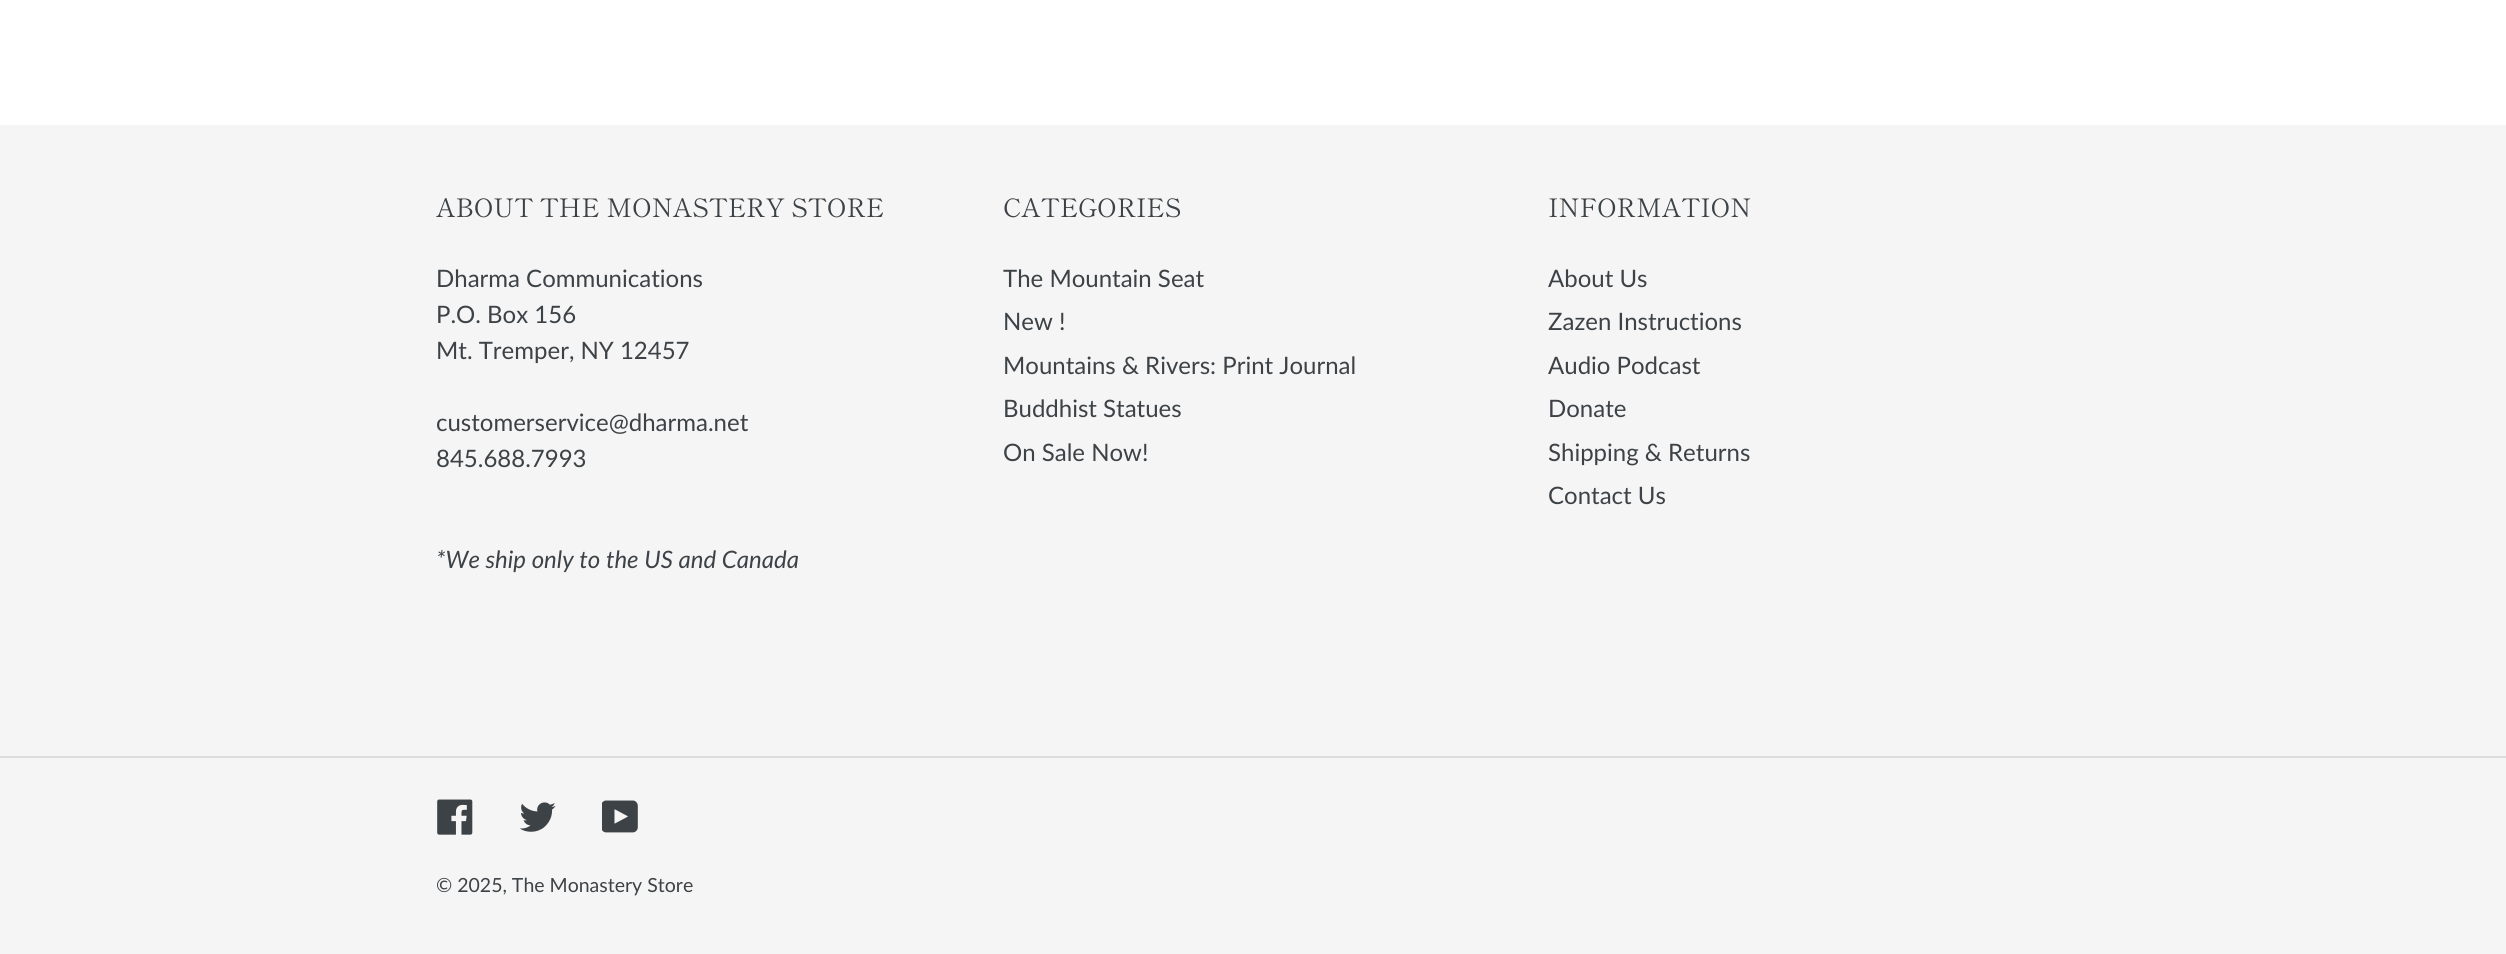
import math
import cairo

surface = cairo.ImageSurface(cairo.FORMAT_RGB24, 2506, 954)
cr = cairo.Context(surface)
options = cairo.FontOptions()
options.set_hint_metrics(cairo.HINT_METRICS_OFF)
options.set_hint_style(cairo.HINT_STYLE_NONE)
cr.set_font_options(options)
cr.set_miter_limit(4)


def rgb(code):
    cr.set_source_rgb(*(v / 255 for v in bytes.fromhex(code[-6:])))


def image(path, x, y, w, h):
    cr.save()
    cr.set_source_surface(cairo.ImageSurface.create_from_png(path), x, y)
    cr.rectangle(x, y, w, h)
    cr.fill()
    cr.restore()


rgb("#ffffff")
cr.paint()
rgb("#f5f5f5")
cr.rectangle(0, 125, 2506, 829)
cr.fill()
rgb("#dcdcdc")
cr.rectangle(0, 756, 2506, 2)
cr.fill()
image("img/1.png", 437, 799, 36, 36)
image("img/2.png", 519, 802, 37, 30)
image("img/3.png", 602, 800, 36, 33)
cr.select_font_face("Shippori Mincho")
cr.set_font_size(25.5)
rgb("#3d4246")
cr.move_to(436, 217)
cr.show_text("ABOUT THE MONASTERY STORE")
cr.select_font_face("Lato")
cr.set_font_size(24)
for x, y, s in [
    (436, 287, "Dharma Communications"),
    (436, 323, "P.O. Box 156"),
    (436, 359, "Mt. Tremper, NY 12457"),
    (436, 431, "customerservice@dharma.net"),
    (436, 467, "845.688.7993"),
]:
    cr.move_to(x, y)
    cr.show_text(s)
cr.select_font_face("Lato", cairo.FONT_SLANT_ITALIC)
cr.move_to(436, 568)
cr.show_text("*We ship only to the US and Canada")
cr.select_font_face("Shippori Mincho")
cr.set_font_size(25.5)
cr.move_to(1003, 217)
cr.show_text("CATEGORIES")
cr.select_font_face("Lato")
cr.set_font_size(24)
for x, y, s in [
    (1003, 287, "The Mountain Seat"),
    (1003, 330, "New !"),
    (1003, 374, "Mountains & Rivers: Print Journal"),
    (1003, 417, "Buddhist Statues"),
    (1003, 461, "On Sale Now!"),
]:
    cr.move_to(x, y)
    cr.show_text(s)
cr.select_font_face("Shippori Mincho")
cr.set_font_size(25.5)
cr.move_to(1548, 217)
cr.show_text("INFORMATION")
cr.select_font_face("Lato")
cr.set_font_size(24)
for x, y, s in [
    (1548, 287, "About Us"),
    (1548, 330, "Zazen Instructions"),
    (1548, 374, "Audio Podcast"),
    (1548, 417, "Donate"),
    (1548, 461, "Shipping & Returns"),
    (1548, 504, "Contact Us"),
]:
    cr.move_to(x, y)
    cr.show_text(s)
cr.set_font_size(19.5)
cr.move_to(436, 892)
cr.show_text("© 2025, The Monastery Store")
surface.write_to_png("page.png")
